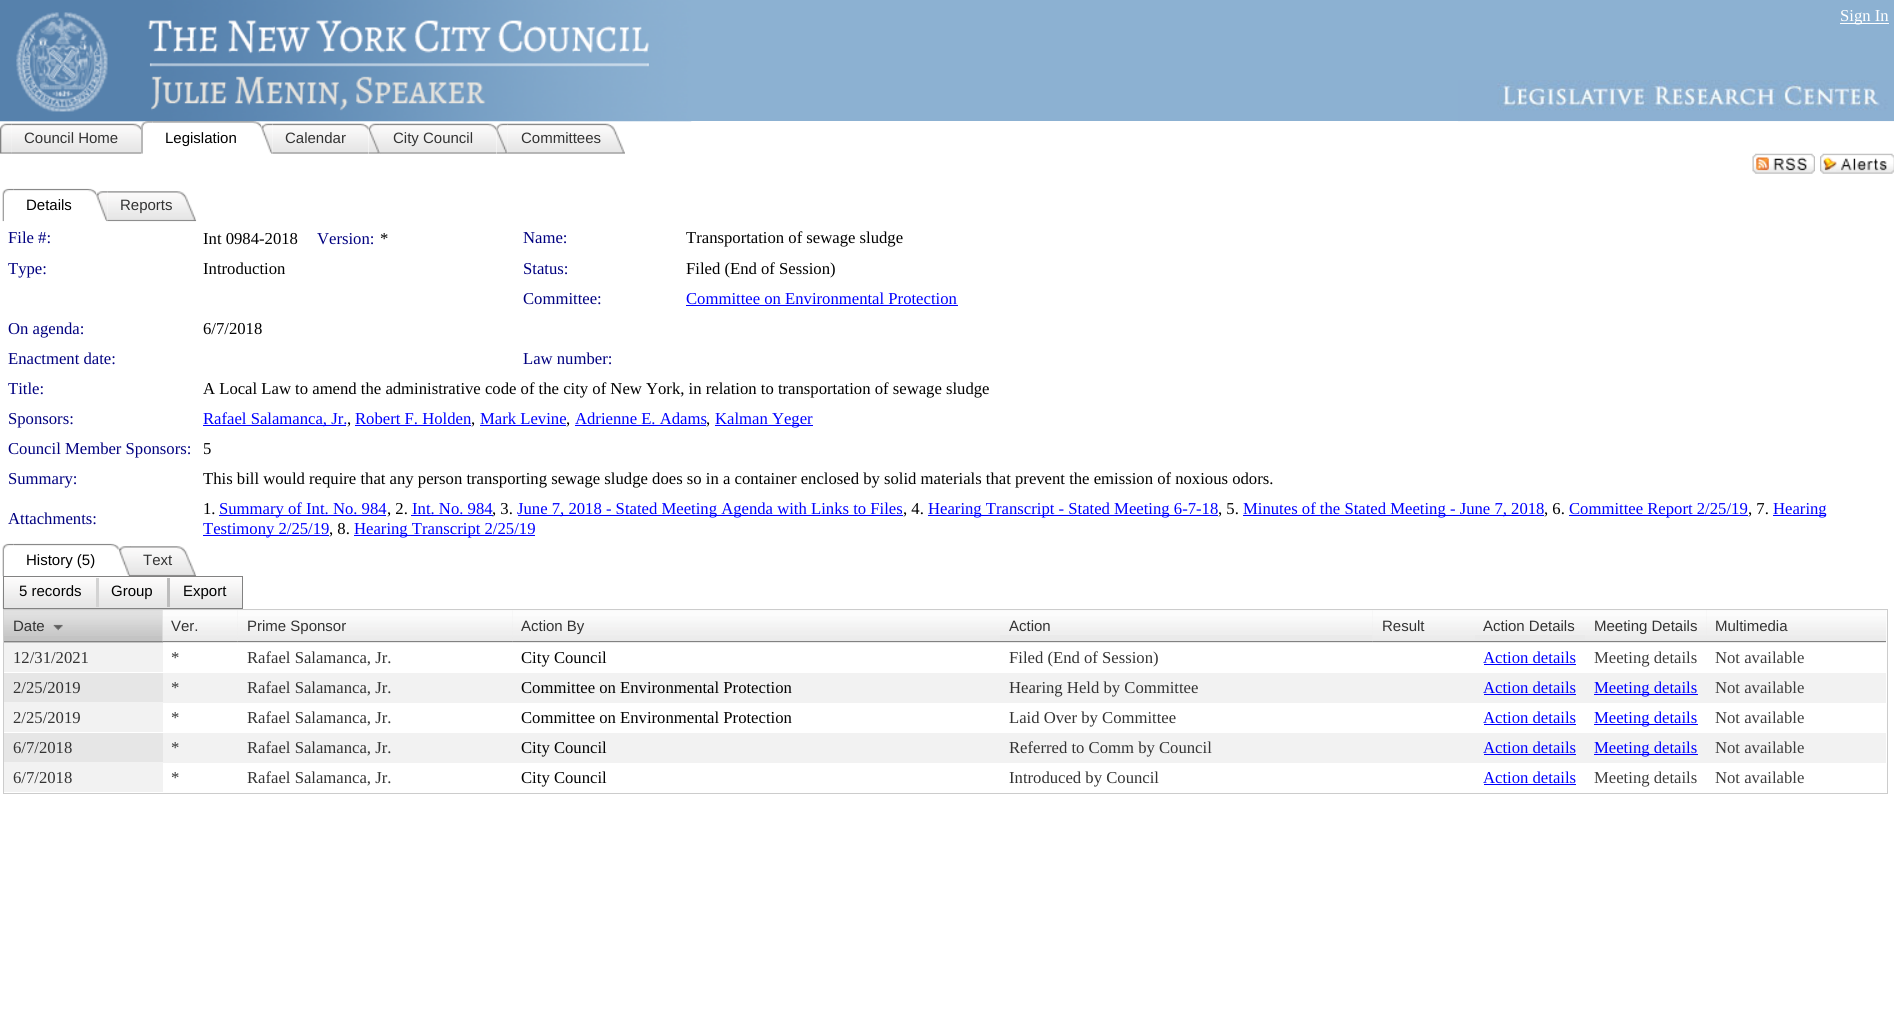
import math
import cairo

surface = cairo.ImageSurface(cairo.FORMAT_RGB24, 1894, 1028)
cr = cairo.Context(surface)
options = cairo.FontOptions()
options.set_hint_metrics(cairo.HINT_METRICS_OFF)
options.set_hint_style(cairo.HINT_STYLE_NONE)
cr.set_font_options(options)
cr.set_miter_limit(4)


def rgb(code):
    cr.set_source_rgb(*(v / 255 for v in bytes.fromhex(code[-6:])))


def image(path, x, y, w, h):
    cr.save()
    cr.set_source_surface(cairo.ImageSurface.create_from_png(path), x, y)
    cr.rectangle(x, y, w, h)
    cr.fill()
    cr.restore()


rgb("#ffffff")
cr.paint()
rgb("#8cb1d2")
cr.rectangle(691, 0, 1203, 121)
cr.fill()
image("img/1.png", 0, 0, 692, 122)
image("img/2.png", 1458, 80, 436, 42)
rgb("#ffffff")
cr.rectangle(1840, 23, 49, 1)
cr.fill()
image("img/3.png", 0, 123, 12, 31)
image("img/4.png", 11, 123, 131, 31)
image("img/5.png", 141, 121, 12, 33)
image("img/6.png", 152, 121, 110, 7)
image("img/7.png", 261, 123, 12, 31)
image("img/8.png", 272, 123, 97, 31)
image("img/9.png", 368, 123, 13, 31)
image("img/10.png", 380, 123, 117, 31)
image("img/11.png", 496, 123, 12, 31)
image("img/12.png", 507, 123, 118, 31)
image("img/13.png", 1752, 153, 63, 21)
image("img/14.png", 1820, 153, 74, 21)
image("img/15.png", 2, 188, 12, 34)
image("img/16.png", 13, 188, 84, 8)
image("img/17.png", 96, 191, 12, 31)
image("img/18.png", 107, 191, 90, 31)
for x, y, w, h, color in [
    (686, 305, 272, 1, "#0000ff"),
    (203, 425, 143, 1, "#0000ff"),
    (355, 425, 116, 1, "#0000ff"),
    (480, 425, 86, 1, "#0000ff"),
    (575, 425, 131, 1, "#0000ff"),
    (715, 425, 98, 1, "#0000ff"),
    (219, 515, 167, 1, "#0000ff"),
    (411, 515, 82, 1, "#0000ff"),
    (518, 515, 385, 1, "#0000ff"),
    (928, 515, 290, 1, "#0000ff"),
    (1243, 515, 301, 1, "#0000ff"),
    (1569, 515, 179, 1, "#0000ff"),
    (1773, 515, 53, 1, "#0000ff"),
    (203, 535, 126, 1, "#0000ff"),
    (354, 535, 181, 1, "#0000ff"),
]:
    rgb(color)
    cr.rectangle(x, y, w, h)
    cr.fill()
image("img/19.png", 2, 543, 12, 33)
image("img/20.png", 13, 543, 106, 7)
image("img/21.png", 118, 546, 13, 30)
image("img/22.png", 130, 546, 67, 30)
image("img/23.png", 2, 576, 240, 33)
cr.rectangle(3.5, 576.5, 239, 32)
rgb("#828282")
cr.set_line_width(1)
cr.stroke()
rgb("#d3d3d3")
cr.rectangle(96, 578, 3, 29)
cr.fill()
rgb("#bdbdbd")
cr.rectangle(167, 578, 3, 29)
cr.fill()
cr.rectangle(3.5, 609.5, 1884, 184)
rgb("#cccccc")
cr.stroke()
rgb("#c4c4c4")
cr.rectangle(4, 610, 159, 33)
cr.fill()
image("img/24.png", 3, 610, 160, 26)
rgb("#828282")
cr.rectangle(4, 641, 159, 1)
cr.fill()
image("img/25.png", 53, 624, 10, 7)
rgb("#eaeaea")
cr.rectangle(163, 610, 1723, 33)
cr.fill()
image("img/26.png", 162, 610, 76, 32)
rgb("#828282")
cr.rectangle(163, 641, 75, 1)
cr.fill()
image("img/27.png", 237, 610, 276, 32)
cr.rectangle(238, 641, 275, 1)
cr.fill()
image("img/28.png", 512, 610, 488, 32)
cr.rectangle(513, 641, 860, 1)
cr.fill()
image("img/29.png", 1000, 610, 373, 25)
image("img/30.png", 1372, 610, 103, 32)
cr.rectangle(1373, 641, 513, 1)
cr.fill()
image("img/31.png", 1475, 610, 110, 25)
image("img/32.png", 1585, 610, 121, 31)
image("img/33.png", 1706, 610, 181, 31)
for x, y, w, h, color in [
    (4, 643, 159, 29, "#f2f2f2"),
    (1484, 664, 92, 1, "#0000ff"),
    (4, 673, 1882, 30, "#f2f2f2"),
    (4, 673, 159, 29, "#e6e6e6"),
    (1484, 694, 92, 1, "#0000ff"),
    (1594, 694, 104, 1, "#0000ff"),
    (4, 703, 159, 29, "#f2f2f2"),
    (1484, 724, 92, 1, "#0000ff"),
    (1594, 724, 104, 1, "#0000ff"),
    (4, 733, 1882, 30, "#f2f2f2"),
    (4, 733, 159, 29, "#e6e6e6"),
    (1484, 754, 92, 1, "#0000ff"),
    (1594, 754, 104, 1, "#0000ff"),
    (4, 763, 159, 29, "#f2f2f2"),
    (1484, 784, 92, 1, "#0000ff"),
]:
    rgb(color)
    cr.rectangle(x, y, w, h)
    cr.fill()
cr.select_font_face("Liberation Serif")
cr.set_font_size(16.67)
rgb("#ffffff")
cr.move_to(1840, 21)
cr.show_text("Sign In")
cr.select_font_face("Liberation Sans")
cr.set_font_size(15)
rgb("#333333")
cr.move_to(24, 143)
cr.show_text("Council Home")
rgb("#000000")
cr.move_to(165, 143)
cr.show_text("Legislation")
rgb("#333333")
for x, y, s in [
    (285, 143, "Calendar"),
    (393, 143, "City Council"),
    (521, 143, "Committees"),
]:
    cr.move_to(x, y)
    cr.show_text(s)
rgb("#000000")
cr.move_to(26, 210)
cr.show_text("Details")
rgb("#333333")
cr.move_to(120, 210)
cr.show_text("Reports")
cr.select_font_face("Liberation Serif")
cr.set_font_size(16.67)
rgb("#000080")
cr.move_to(8, 243)
cr.show_text("File #:")
rgb("#000000")
cr.move_to(203, 244)
cr.show_text("Int 0984-2018")
rgb("#000080")
cr.move_to(317, 244)
cr.show_text("Version:")
rgb("#000000")
cr.move_to(380, 244)
cr.show_text("*")
rgb("#000080")
cr.move_to(523, 243)
cr.show_text("Name:")
rgb("#000000")
cr.move_to(686, 243)
cr.show_text("Transportation of sewage sludge")
rgb("#000080")
cr.move_to(8, 274)
cr.show_text("Type:")
rgb("#000000")
cr.move_to(203, 274)
cr.show_text("Introduction")
rgb("#000080")
cr.move_to(523, 274)
cr.show_text("Status:")
rgb("#000000")
cr.move_to(686, 274)
cr.show_text("Filed (End of Session)")
rgb("#000080")
cr.move_to(523, 304)
cr.show_text("Committee:")
rgb("#0000ff")
cr.move_to(686, 304)
cr.show_text("Committee on Environmental Protection")
rgb("#000080")
cr.move_to(8, 334)
cr.show_text("On agenda:")
rgb("#000000")
cr.move_to(203, 334)
cr.show_text("6/7/2018")
rgb("#000080")
for x, y, s in [
    (8, 364, "Enactment date:"),
    (523, 364, "Law number:"),
    (8, 394, "Title:"),
]:
    cr.move_to(x, y)
    cr.show_text(s)
rgb("#000000")
cr.move_to(203, 394)
cr.show_text("A Local Law to amend the administrative code of the city of New York, in relation to transportation of sewage sludge")
rgb("#000080")
cr.move_to(8, 424)
cr.show_text("Sponsors:")
rgb("#0000ff")
cr.move_to(203, 424)
cr.show_text("Rafael Salamanca, Jr.")
rgb("#000000")
cr.move_to(347, 424)
cr.show_text(",")
rgb("#0000ff")
cr.move_to(355, 424)
cr.show_text("Robert F. Holden")
rgb("#000000")
cr.move_to(471, 424)
cr.show_text(",")
rgb("#0000ff")
cr.move_to(480, 424)
cr.show_text("Mark Levine")
rgb("#000000")
cr.move_to(566, 424)
cr.show_text(",")
rgb("#0000ff")
cr.move_to(575, 424)
cr.show_text("Adrienne E. Adams")
rgb("#000000")
cr.move_to(706, 424)
cr.show_text(",")
rgb("#0000ff")
cr.move_to(715, 424)
cr.show_text("Kalman Yeger")
rgb("#000080")
cr.move_to(8, 454)
cr.show_text("Council Member Sponsors:")
rgb("#000000")
cr.move_to(203, 454)
cr.show_text("5")
rgb("#000080")
cr.move_to(8, 484)
cr.show_text("Summary:")
rgb("#000000")
cr.move_to(203, 484)
cr.show_text("This bill would require that any person transporting sewage sludge does so in a container enclosed by solid materials that prevent the emission of noxious odors.")
rgb("#000080")
cr.move_to(8, 524)
cr.show_text("Attachments:")
rgb("#000000")
cr.move_to(203, 514)
cr.show_text("1.")
rgb("#0000ff")
cr.move_to(219, 514)
cr.show_text("Summary of Int. No. 984")
rgb("#000000")
cr.move_to(387, 514)
cr.show_text(", 2.")
rgb("#0000ff")
cr.move_to(412, 514)
cr.show_text("Int. No. 984")
rgb("#000000")
cr.move_to(492, 514)
cr.show_text(", 3.")
rgb("#0000ff")
cr.move_to(517, 514)
cr.show_text("June 7, 2018 - Stated Meeting Agenda with Links to Files")
rgb("#000000")
cr.move_to(903, 514)
cr.show_text(", 4.")
rgb("#0000ff")
cr.move_to(928, 514)
cr.show_text("Hearing Transcript - Stated Meeting 6-7-18")
rgb("#000000")
cr.move_to(1218, 514)
cr.show_text(", 5.")
rgb("#0000ff")
cr.move_to(1243, 514)
cr.show_text("Minutes of the Stated Meeting - June 7, 2018")
rgb("#000000")
cr.move_to(1544, 514)
cr.show_text(", 6.")
rgb("#0000ff")
cr.move_to(1569, 514)
cr.show_text("Committee Report 2/25/19")
rgb("#000000")
cr.move_to(1748, 514)
cr.show_text(", 7.")
rgb("#0000ff")
cr.move_to(1773, 514)
cr.show_text("Hearing")
cr.move_to(203, 534)
cr.show_text("Testimony 2/25/19")
rgb("#000000")
cr.move_to(329, 534)
cr.show_text(", 8.")
rgb("#0000ff")
cr.move_to(354, 534)
cr.show_text("Hearing Transcript 2/25/19")
cr.select_font_face("Liberation Sans")
cr.set_font_size(15)
rgb("#000000")
cr.move_to(26, 565)
cr.show_text("History (5)")
rgb("#333333")
cr.move_to(143, 565)
cr.show_text("Text")
rgb("#000000")
for x, y, s in [
    (19, 596, "5 records"),
    (111, 596, "Group"),
    (183, 596, "Export"),
]:
    cr.move_to(x, y)
    cr.show_text(s)
rgb("#333333")
for x, y, s in [
    (13, 631, "Date"),
    (171, 631, "Ver."),
    (247, 631, "Prime Sponsor"),
    (521, 631, "Action By"),
    (1009, 631, "Action"),
    (1382, 631, "Result"),
    (1483, 631, "Action Details"),
    (1594, 631, "Meeting Details"),
    (1715, 631, "Multimedia"),
]:
    cr.move_to(x, y)
    cr.show_text(s)
cr.select_font_face("Liberation Serif")
cr.set_font_size(16.67)
for x, y, s in [
    (13, 663, "12/31/2021"),
    (171, 663, "*"),
    (247, 663, "Rafael Salamanca, Jr."),
]:
    cr.move_to(x, y)
    cr.show_text(s)
rgb("#000000")
cr.move_to(521, 663)
cr.show_text("City Council")
rgb("#333333")
cr.move_to(1009, 663)
cr.show_text("Filed (End of Session)")
rgb("#0000ff")
cr.move_to(1483, 663)
cr.show_text("Action details")
rgb("#3d3d3d")
cr.move_to(1594, 663)
cr.show_text("Meeting details")
cr.move_to(1715, 663)
cr.show_text("Not available")
rgb("#333333")
for x, y, s in [
    (13, 693, "2/25/2019"),
    (171, 693, "*"),
    (247, 693, "Rafael Salamanca, Jr."),
]:
    cr.move_to(x, y)
    cr.show_text(s)
rgb("#000000")
cr.move_to(521, 693)
cr.show_text("Committee on Environmental Protection")
rgb("#333333")
cr.move_to(1009, 693)
cr.show_text("Hearing Held by Committee")
rgb("#0000ff")
cr.move_to(1483, 693)
cr.show_text("Action details")
cr.move_to(1594, 693)
cr.show_text("Meeting details")
rgb("#3d3d3d")
cr.move_to(1715, 693)
cr.show_text("Not available")
rgb("#333333")
for x, y, s in [
    (13, 723, "2/25/2019"),
    (171, 723, "*"),
    (247, 723, "Rafael Salamanca, Jr."),
]:
    cr.move_to(x, y)
    cr.show_text(s)
rgb("#000000")
cr.move_to(521, 723)
cr.show_text("Committee on Environmental Protection")
rgb("#333333")
cr.move_to(1009, 723)
cr.show_text("Laid Over by Committee")
rgb("#0000ff")
cr.move_to(1483, 723)
cr.show_text("Action details")
cr.move_to(1594, 723)
cr.show_text("Meeting details")
rgb("#3d3d3d")
cr.move_to(1715, 723)
cr.show_text("Not available")
rgb("#333333")
for x, y, s in [
    (13, 753, "6/7/2018"),
    (171, 753, "*"),
    (247, 753, "Rafael Salamanca, Jr."),
]:
    cr.move_to(x, y)
    cr.show_text(s)
rgb("#000000")
cr.move_to(521, 753)
cr.show_text("City Council")
rgb("#333333")
cr.move_to(1009, 753)
cr.show_text("Referred to Comm by Council")
rgb("#0000ff")
cr.move_to(1483, 753)
cr.show_text("Action details")
cr.move_to(1594, 753)
cr.show_text("Meeting details")
rgb("#3d3d3d")
cr.move_to(1715, 753)
cr.show_text("Not available")
rgb("#333333")
for x, y, s in [
    (13, 783, "6/7/2018"),
    (171, 783, "*"),
    (247, 783, "Rafael Salamanca, Jr."),
]:
    cr.move_to(x, y)
    cr.show_text(s)
rgb("#000000")
cr.move_to(521, 783)
cr.show_text("City Council")
rgb("#333333")
cr.move_to(1009, 783)
cr.show_text("Introduced by Council")
rgb("#0000ff")
cr.move_to(1483, 783)
cr.show_text("Action details")
rgb("#3d3d3d")
cr.move_to(1594, 783)
cr.show_text("Meeting details")
cr.move_to(1715, 783)
cr.show_text("Not available")
surface.write_to_png("page.png")
